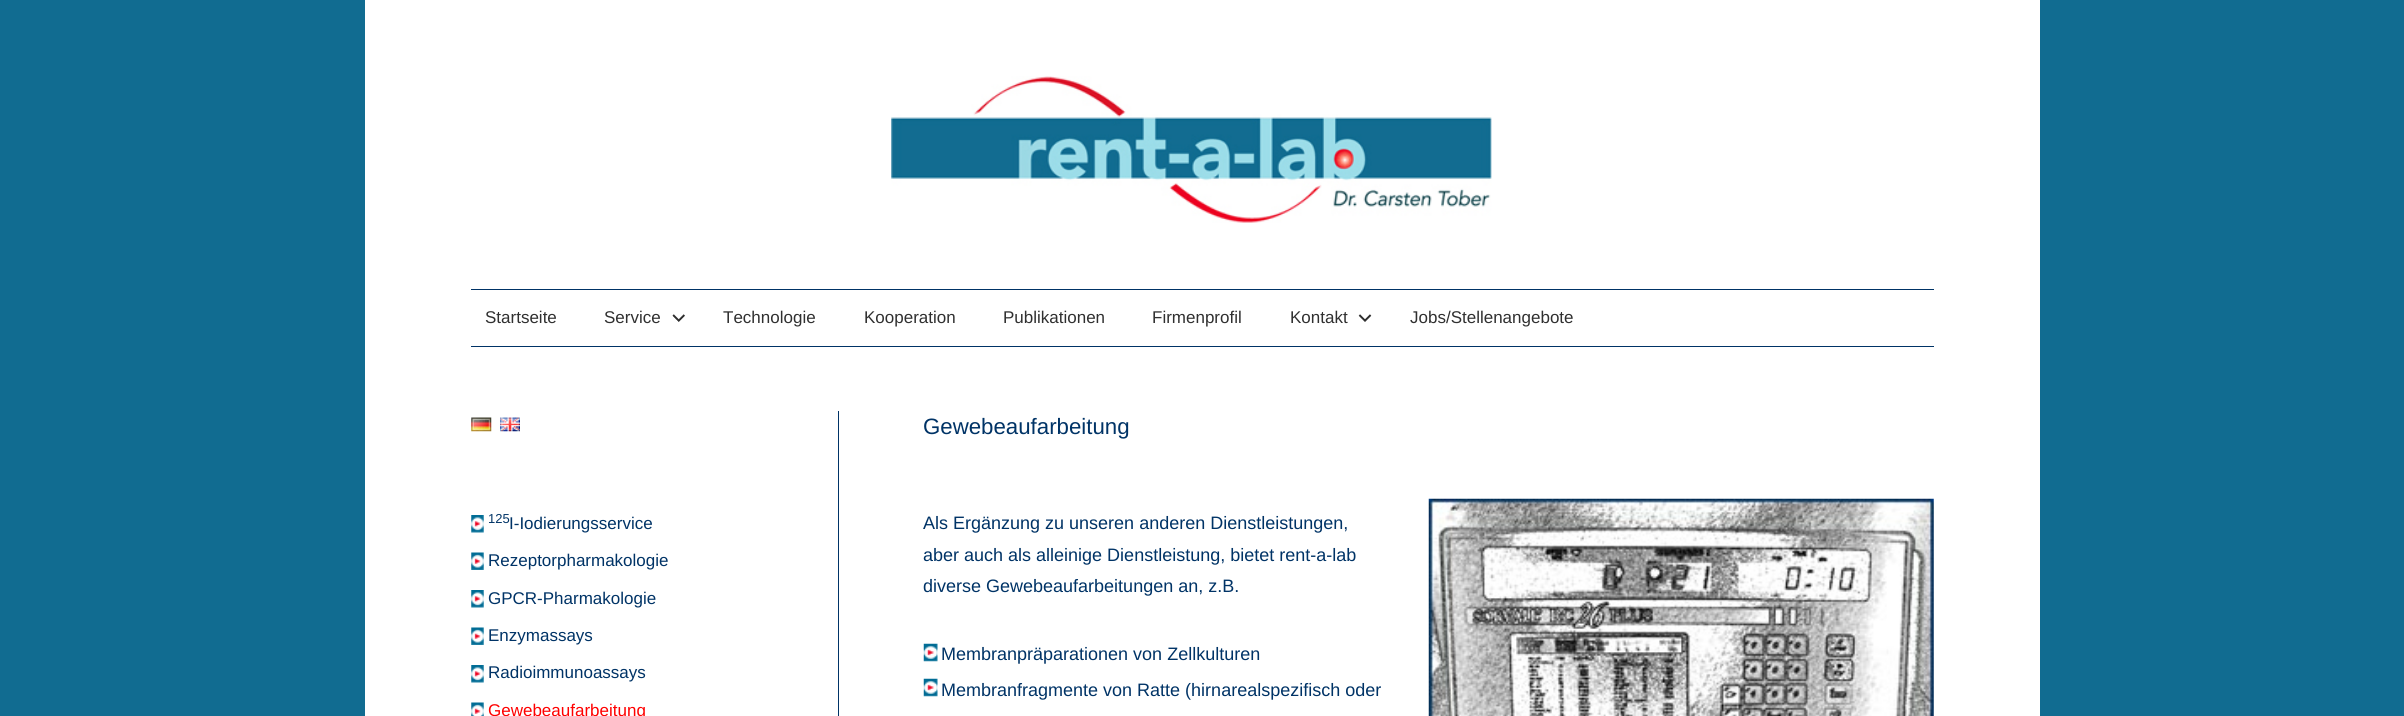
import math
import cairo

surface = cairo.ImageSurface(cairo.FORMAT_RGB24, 2404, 716)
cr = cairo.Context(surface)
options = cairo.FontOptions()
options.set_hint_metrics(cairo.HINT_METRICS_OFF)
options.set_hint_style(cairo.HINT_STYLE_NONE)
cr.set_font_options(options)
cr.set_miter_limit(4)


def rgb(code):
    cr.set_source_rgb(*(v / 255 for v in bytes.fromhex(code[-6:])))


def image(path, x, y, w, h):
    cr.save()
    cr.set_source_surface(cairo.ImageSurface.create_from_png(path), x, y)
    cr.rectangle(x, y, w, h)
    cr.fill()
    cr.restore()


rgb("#116c91")
cr.paint()
rgb("#ffffff")
cr.rectangle(365, 0, 1675, 716)
cr.fill()
image("img/1.png", 891, 76, 601, 147)
rgb("#003366")
cr.rectangle(471, 289, 1463, 1)
cr.fill()
cr.rectangle(471, 346, 1463, 1)
cr.fill()
image("img/2.png", 672, 314, 13, 8)
image("img/3.png", 1358, 314, 14, 8)
image("img/4.png", 471, 417, 21, 15)
image("img/5.png", 500, 417, 20, 15)
image("img/6.png", 471, 515, 13, 18)
image("img/7.png", 471, 552, 13, 18)
image("img/6.png", 471, 590, 13, 18)
image("img/7.png", 471, 627, 13, 18)
image("img/6.png", 471, 665, 13, 18)
image("img/8.png", 471, 702, 13, 14)
cr.rectangle(838, 411, 1, 305)
cr.fill()
image("img/9.png", 923, 643, 15, 19)
image("img/9.png", 923, 678, 15, 19)
image("img/10.png", 1428, 498, 506, 218)
cr.select_font_face("Liberation Sans")
cr.set_font_size(17)
rgb("#303030")
for x, y, s in [
    (485, 323, "Startseite"),
    (604, 323, "Service"),
    (723, 323, "Technologie"),
    (864, 323, "Kooperation"),
    (1003, 323, "Publikationen"),
    (1152, 323, "Firmenprofil"),
    (1290, 323, "Kontakt"),
    (1410, 323, "Jobs/Stellenangebote"),
]:
    cr.move_to(x, y)
    cr.show_text(s)
cr.set_font_size(13)
rgb("#003366")
cr.move_to(488, 523)
cr.show_text("125")
cr.set_font_size(17)
for x, y, s in [
    (509, 529, "I-Iodierungsservice"),
    (488, 566, "Rezeptorpharmakologie"),
    (488, 604, "GPCR-Pharmakologie"),
    (488, 641, "Enzymassays"),
    (488, 678, "Radioimmunoassays"),
]:
    cr.move_to(x, y)
    cr.show_text(s)
rgb("#ff0000")
cr.move_to(488, 716)
cr.show_text("Gewebeaufarbeitung")
cr.set_font_size(22.25)
rgb("#003366")
cr.move_to(923, 434)
cr.show_text("Gewebeaufarbeitung")
cr.set_font_size(18)
for x, y, s in [
    (923, 529, "Als Ergänzung zu unseren anderen Dienstleistungen,"),
    (923, 561, "aber auch als alleinige Dienstleistung, bietet rent-a-lab"),
    (923, 592, "diverse Gewebeaufarbeitungen an, z.B."),
    (941, 660, "Membranpräparationen von Zellkulturen"),
    (941, 696, "Membranfragmente von Ratte (hirnarealspezifisch oder"),
]:
    cr.move_to(x, y)
    cr.show_text(s)
surface.write_to_png("page.png")
